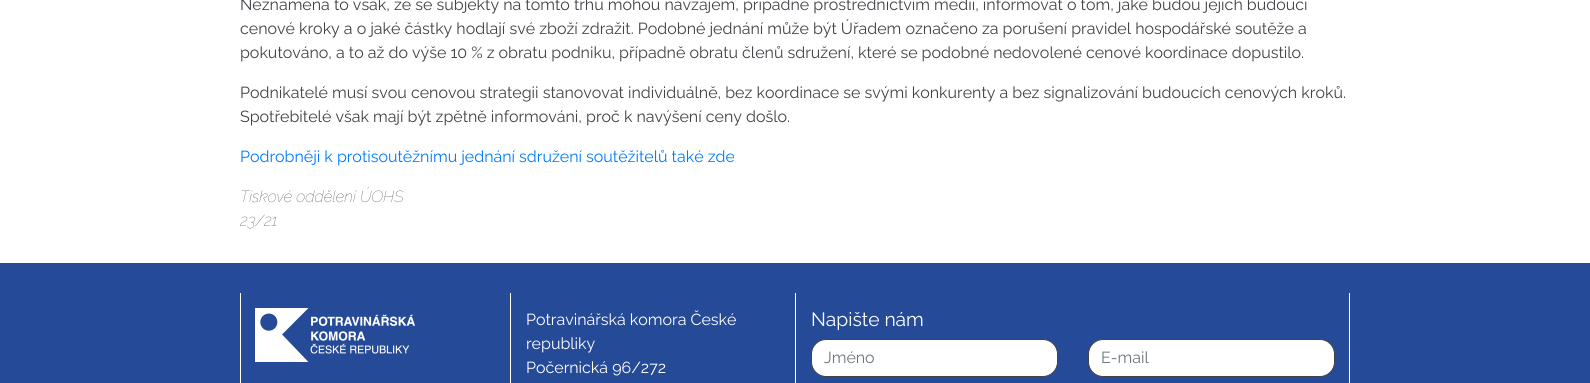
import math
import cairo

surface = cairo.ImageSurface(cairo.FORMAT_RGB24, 1590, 383)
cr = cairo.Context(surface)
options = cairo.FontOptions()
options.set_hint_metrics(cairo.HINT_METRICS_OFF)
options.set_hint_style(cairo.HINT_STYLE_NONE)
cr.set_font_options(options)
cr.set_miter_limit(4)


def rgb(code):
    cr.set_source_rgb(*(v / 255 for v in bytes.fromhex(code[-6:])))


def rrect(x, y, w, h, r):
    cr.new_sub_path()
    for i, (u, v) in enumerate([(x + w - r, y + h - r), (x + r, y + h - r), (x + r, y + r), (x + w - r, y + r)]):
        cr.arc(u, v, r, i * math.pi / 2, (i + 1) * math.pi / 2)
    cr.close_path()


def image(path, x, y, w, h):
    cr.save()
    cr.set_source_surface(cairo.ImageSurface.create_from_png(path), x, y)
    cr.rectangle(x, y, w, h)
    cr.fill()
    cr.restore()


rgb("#ffffff")
cr.paint()
rgb("#254a97")
cr.rectangle(0, 263, 1590, 120)
cr.fill()
rgb("#ffffff")
cr.rectangle(240, 293, 1, 90)
cr.fill()
image("img/1.png", 255, 308, 160, 54)
cr.rectangle(510, 293, 1, 90)
cr.fill()
cr.rectangle(795, 293, 1, 90)
cr.fill()
rrect(811.5, 339.5, 246, 37, 14.5)
cr.fill_preserve()
rgb("#424248")
cr.set_line_width(1)
cr.stroke()
rgb("#ffffff")
rrect(1088.5, 339.5, 246, 37, 14.5)
cr.fill_preserve()
rgb("#424248")
cr.stroke()
rgb("#ffffff")
cr.rectangle(1349, 293, 1, 90)
cr.fill()
cr.select_font_face("Raleway")
cr.set_font_size(16)
rgb("#424248")
for x, y, s in [
    (240, 10, "Neznamená to však, že se subjekty na tomto trhu mohou navzájem, případně prostřednictvím médií, informovat o tom, jaké budou jejich budoucí"),
    (240, 34, "cenové kroky a o jaké částky hodlají své zboží zdražit. Podobné jednání může být Úřadem označeno za porušení pravidel hospodářské soutěže a"),
    (240, 58, "pokutováno, a to až do výše 10 % z obratu podniku, případně obratu členů sdružení, které se podobné nedovolené cenové koordinace dopustilo."),
    (240, 98, "Podnikatelé musí svou cenovou strategii stanovovat individuálně, bez koordinace se svými konkurenty a bez signalizování budoucích cenových kroků."),
    (240, 122, "Spotřebitelé však mají být zpětně informováni, proč k navýšení ceny došlo."),
]:
    cr.move_to(x, y)
    cr.show_text(s)
rgb("#007bff")
cr.move_to(240, 162)
cr.show_text("Podrobněji k protisoutěžnímu jednání sdružení soutěžitelů také zde")
cr.select_font_face("Raleway Thin", cairo.FONT_SLANT_ITALIC)
rgb("#424248")
cr.move_to(240, 202)
cr.show_text("Tiskové oddělení ÚOHS")
cr.move_to(240, 226)
cr.show_text("23/21")
cr.select_font_face("Raleway")
rgb("#ffffff")
for x, y, s in [
    (526, 325, "Potravinářská komora České"),
    (526, 349, "republiky"),
    (526, 373, "Počernická 96/272"),
]:
    cr.move_to(x, y)
    cr.show_text(s)
cr.set_font_size(19.25)
cr.move_to(811, 326)
cr.show_text("Napište nám")
cr.set_font_size(16)
rgb("#6c757d")
cr.move_to(824, 363)
cr.show_text("Jméno")
cr.move_to(1101, 363)
cr.show_text("E-mail")
surface.write_to_png("page.png")
